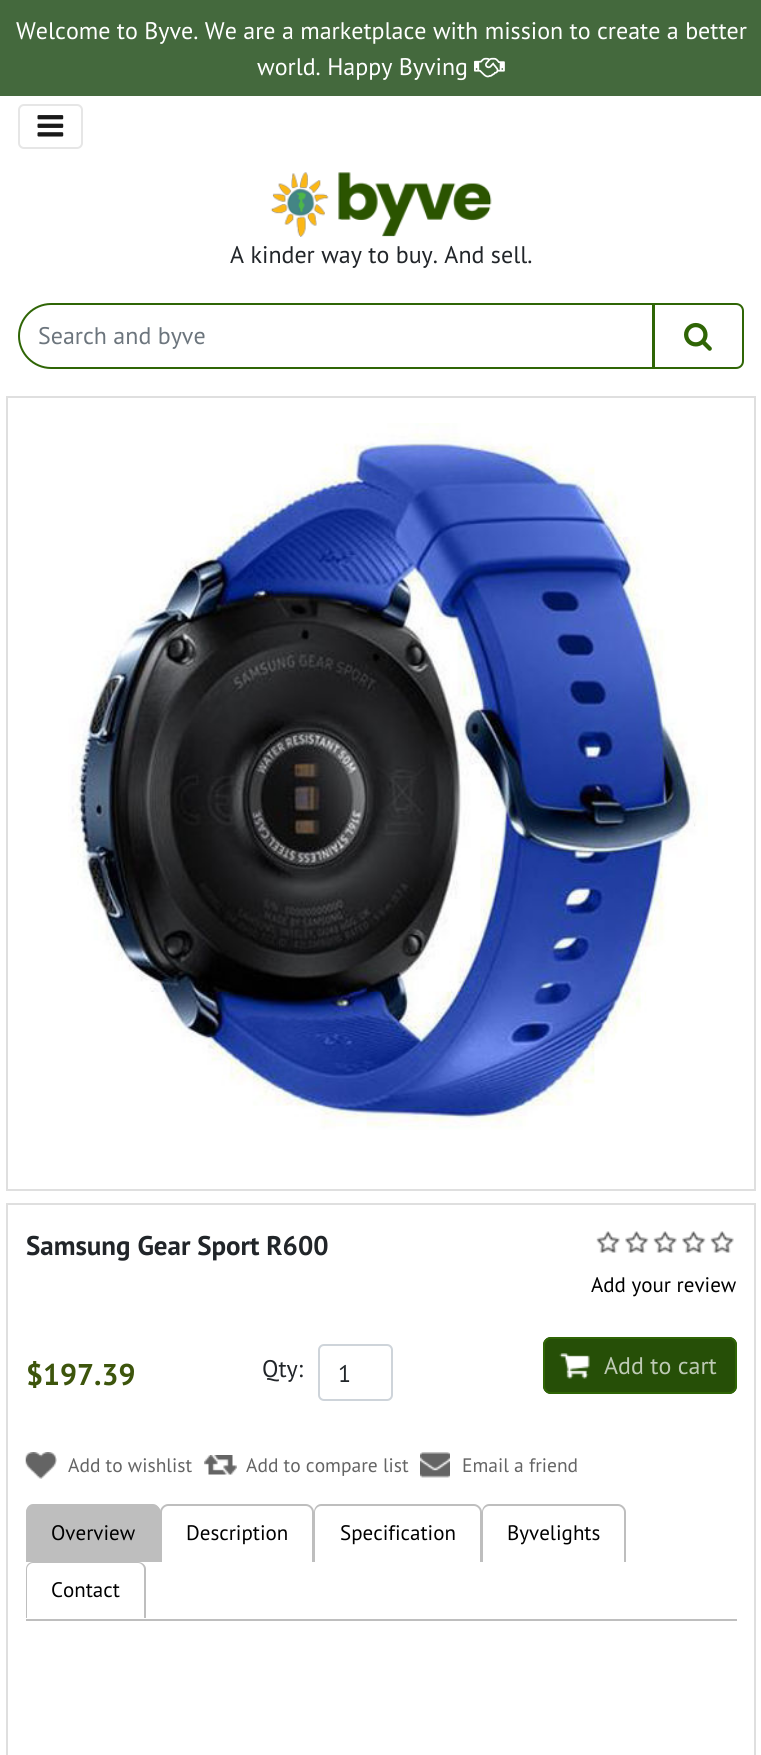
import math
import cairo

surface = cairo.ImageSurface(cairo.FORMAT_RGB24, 761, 1755)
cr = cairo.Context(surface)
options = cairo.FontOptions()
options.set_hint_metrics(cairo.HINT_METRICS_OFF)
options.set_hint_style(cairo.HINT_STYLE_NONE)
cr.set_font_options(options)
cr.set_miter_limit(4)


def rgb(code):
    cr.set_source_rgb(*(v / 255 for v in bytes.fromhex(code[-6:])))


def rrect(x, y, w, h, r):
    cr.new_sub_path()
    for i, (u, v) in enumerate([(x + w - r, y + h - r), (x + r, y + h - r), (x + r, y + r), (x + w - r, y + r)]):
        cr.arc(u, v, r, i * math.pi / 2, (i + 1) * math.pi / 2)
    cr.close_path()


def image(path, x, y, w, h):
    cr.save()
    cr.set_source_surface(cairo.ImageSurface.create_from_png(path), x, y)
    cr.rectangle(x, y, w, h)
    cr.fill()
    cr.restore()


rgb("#ffffff")
cr.paint()
rgb("#44693d")
cr.rectangle(0, 0, 761, 96)
cr.fill()
image("img/1.png", 474, 57, 31, 21)
rrect(19, 105, 63, 43, 5)
rgb("#e6e6e6")
cr.stroke()
image("img/2.png", 37, 115, 27, 22)
image("img/3.png", 270, 172, 222, 65)
cr.new_path()
cr.move_to(51, 304)
cr.line_to(653, 304)
cr.line_to(653, 368)
cr.line_to(51, 368)
cr.curve_to(33.5, 368, 19, 353.5, 19, 336)
cr.curve_to(19, 318.5, 33.5, 304, 51, 304)
cr.close_path()
rgb("#2f6505")
cr.stroke()
rgb("#ffffff")
cr.new_path()
cr.move_to(654, 304)
cr.line_to(736, 304)
cr.curve_to(740, 304, 743, 307, 743, 311)
cr.line_to(743, 361)
cr.curve_to(743, 365, 740, 368, 736, 368)
cr.line_to(654, 368)
cr.close_path()
cr.fill_preserve()
rgb("#2f6505")
cr.stroke()
image("img/4.png", 684, 322, 28, 29)
cr.rectangle(7, 397, 748, 793)
rgb("#dfdfdf")
cr.stroke()
image("img/5.png", 68, 423, 640, 707)
cr.rectangle(7, 1204, 748, 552)
cr.stroke()
image("img/6.png", 596, 1231, 138, 22)
rrect(319, 1345, 73, 55, 5)
rgb("#ced4da")
cr.stroke()
rgb("#264f07")
rrect(543, 1337, 194, 57, 8)
cr.fill()
image("img/7.png", 559, 1353, 31, 26)
rrect(544, 1338, 192, 55, 7)
rgb("#2f6505")
cr.stroke()
image("img/8.png", 25, 1452, 32, 27)
image("img/9.png", 204, 1455, 33, 20)
image("img/10.png", 420, 1452, 30, 26)
rgb("#bebebe")
cr.rectangle(26, 1619, 711, 2)
cr.fill()
cr.new_path()
cr.move_to(34, 1505)
cr.line_to(153, 1505)
cr.curve_to(157.5, 1505, 161, 1508.5, 161, 1513)
cr.line_to(161, 1562)
cr.line_to(26, 1562)
cr.line_to(26, 1513)
cr.curve_to(26, 1508.5, 29.5, 1505, 34, 1505)
cr.close_path()
cr.fill()
cr.set_fill_rule(cairo.FILL_RULE_EVEN_ODD)
cr.new_path()
cr.move_to(33, 1504)
cr.line_to(153, 1504)
cr.curve_to(157, 1504, 160, 1508, 160, 1512)
cr.line_to(160, 1562)
cr.line_to(26, 1562)
cr.line_to(26, 1512)
cr.curve_to(26, 1508, 29, 1504, 33, 1504)
cr.close_path()
cr.move_to(33, 1506)
cr.line_to(153, 1506)
cr.curve_to(156, 1506, 159, 1509, 159, 1512)
cr.line_to(159, 1562)
cr.line_to(27, 1562)
cr.line_to(27, 1512)
cr.curve_to(27, 1509, 30, 1506, 33, 1506)
cr.close_path()
cr.fill()
cr.new_path()
cr.move_to(168, 1504)
cr.line_to(306, 1504)
cr.curve_to(310, 1504, 314, 1508, 314, 1512)
cr.line_to(314, 1562)
cr.line_to(160, 1562)
cr.line_to(160, 1512)
cr.curve_to(160, 1508, 164, 1504, 168, 1504)
cr.close_path()
cr.move_to(168, 1506)
cr.line_to(306, 1506)
cr.curve_to(309, 1506, 312, 1509, 312, 1512)
cr.line_to(312, 1562)
cr.line_to(162, 1562)
cr.line_to(162, 1512)
cr.curve_to(162, 1509, 165, 1506, 168, 1506)
cr.close_path()
cr.fill()
cr.new_path()
cr.move_to(321, 1504)
cr.line_to(474, 1504)
cr.curve_to(478, 1504, 482, 1508, 482, 1512)
cr.line_to(482, 1562)
cr.line_to(314, 1562)
cr.line_to(314, 1512)
cr.curve_to(314, 1508, 317, 1504, 321, 1504)
cr.close_path()
cr.move_to(321, 1506)
cr.line_to(474, 1506)
cr.curve_to(477, 1506, 480, 1509, 480, 1512)
cr.line_to(480, 1562)
cr.line_to(315, 1562)
cr.line_to(315, 1512)
cr.curve_to(315, 1509, 318, 1506, 321, 1506)
cr.close_path()
cr.fill()
cr.new_path()
cr.move_to(489, 1504)
cr.line_to(618, 1504)
cr.curve_to(622, 1504, 626, 1508, 626, 1512)
cr.line_to(626, 1562)
cr.line_to(482, 1562)
cr.line_to(482, 1512)
cr.curve_to(482, 1508, 485, 1504, 489, 1504)
cr.close_path()
cr.move_to(489, 1506)
cr.line_to(618, 1506)
cr.curve_to(621, 1506, 624, 1509, 624, 1512)
cr.line_to(624, 1562)
cr.line_to(483, 1562)
cr.line_to(483, 1512)
cr.curve_to(483, 1509, 486, 1506, 489, 1506)
cr.close_path()
cr.fill()
cr.new_path()
cr.move_to(33, 1562)
cr.line_to(138, 1562)
cr.curve_to(142, 1562, 146, 1565, 146, 1569)
cr.line_to(146, 1618)
cr.line_to(26, 1618)
cr.line_to(26, 1569)
cr.curve_to(26, 1565, 29, 1562, 33, 1562)
cr.close_path()
cr.move_to(33, 1563)
cr.line_to(138, 1563)
cr.curve_to(141, 1563, 144, 1566, 144, 1569)
cr.line_to(144, 1618)
cr.line_to(27, 1618)
cr.line_to(27, 1569)
cr.curve_to(27, 1566, 30, 1563, 33, 1563)
cr.close_path()
cr.fill()
cr.select_font_face("PT Sans")
cr.set_font_size(24)
rgb("#ffffff")
cr.move_to(16, 39)
cr.show_text("Welcome to Byve. We are a marketplace with mission to create a better")
cr.move_to(257, 75)
cr.show_text("world. Happy Byving")
rgb("#212529")
cr.move_to(230, 263)
cr.show_text("A kinder way to buy. And sell.")
rgb("#6c757d")
cr.move_to(38, 344)
cr.show_text("Search and byve")
cr.select_font_face("PT Sans", cairo.FONT_SLANT_NORMAL, cairo.FONT_WEIGHT_BOLD)
cr.set_font_size(27)
rgb("#212529")
cr.move_to(26, 1255)
cr.show_text("Samsung Gear Sport R600")
cr.select_font_face("PT Sans")
cr.set_font_size(21)
rgb("#000000")
cr.move_to(591, 1292)
cr.show_text("Add your review")
cr.select_font_face("PT Sans", cairo.FONT_SLANT_NORMAL, cairo.FONT_WEIGHT_BOLD)
cr.set_font_size(30)
rgb("#3d550c")
cr.move_to(26, 1385)
cr.show_text("$197.39")
cr.select_font_face("PT Sans")
cr.set_font_size(24)
rgb("#212529")
cr.move_to(262, 1377)
cr.show_text("Qty:")
cr.move_to(338, 1382)
cr.show_text("1")
rgb("#becab5")
cr.move_to(604, 1374)
cr.show_text("Add to cart")
cr.set_font_size(19.5)
rgb("#646464")
for x, y, s in [
    (68, 1472, "Add to wishlist"),
    (246, 1472, "Add to compare list"),
    (462, 1472, "Email a friend"),
]:
    cr.move_to(x, y)
    cr.show_text(s)
cr.set_font_size(21)
rgb("#000000")
for x, y, s in [
    (51, 1540, "Overview"),
    (186, 1540, "Description"),
    (340, 1540, "Specification"),
    (507, 1540, "Byvelights"),
    (51, 1597, "Contact"),
]:
    cr.move_to(x, y)
    cr.show_text(s)
surface.write_to_png("page.png")
